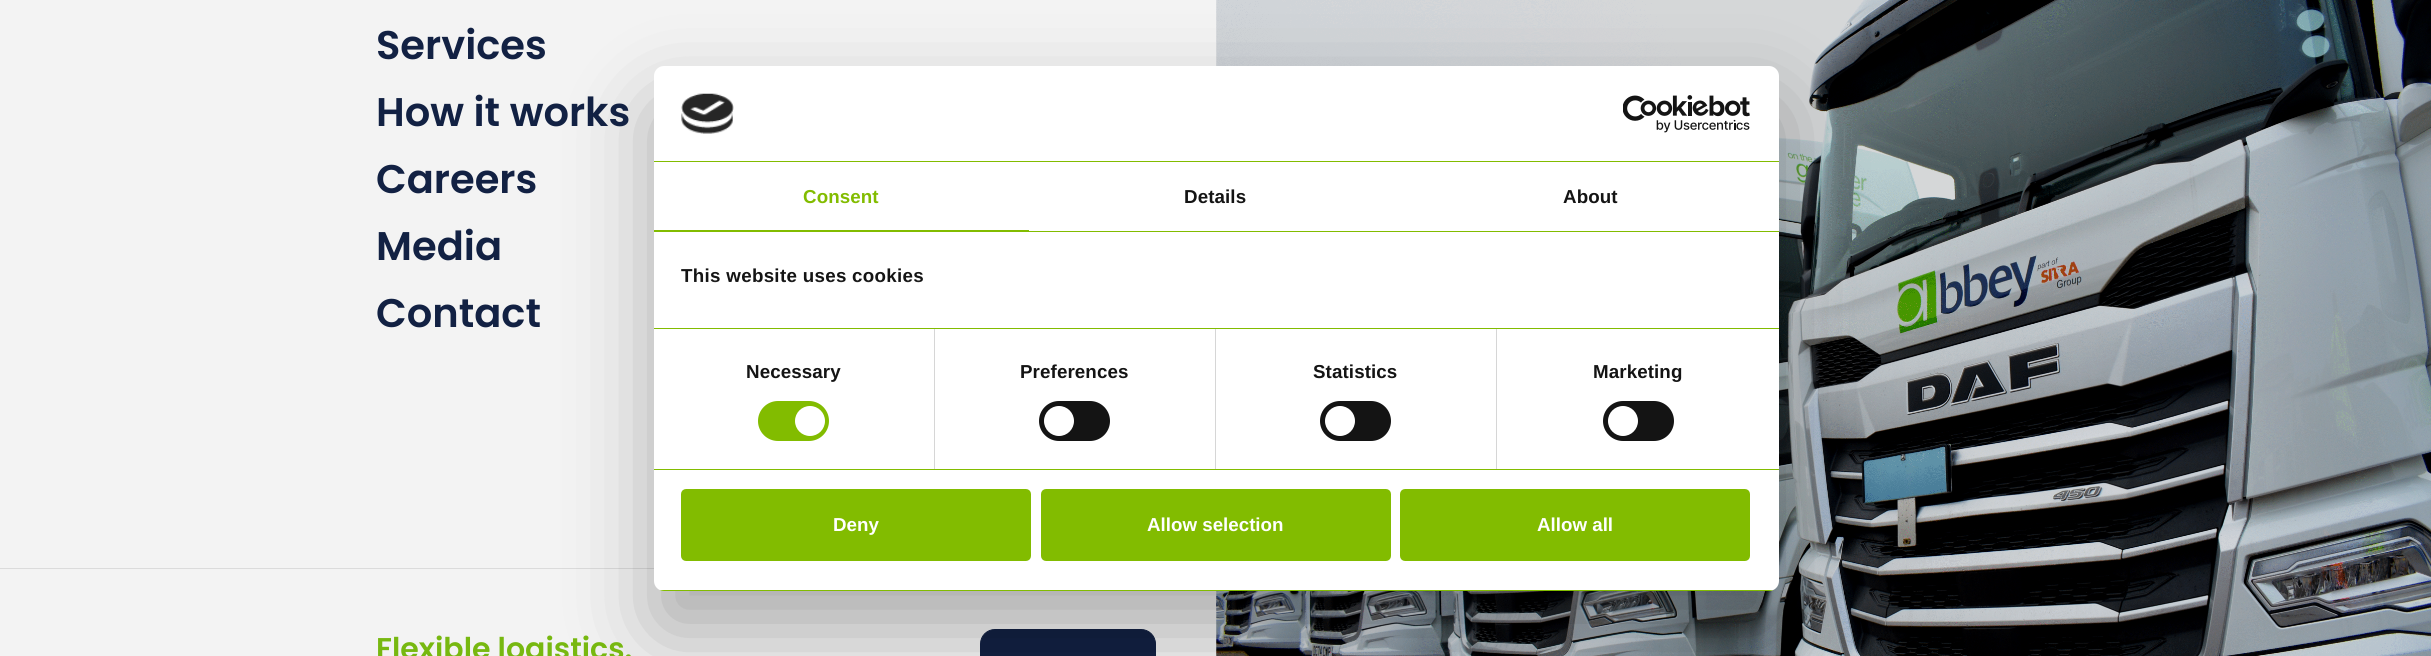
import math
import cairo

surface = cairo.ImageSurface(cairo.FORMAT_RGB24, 2431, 656)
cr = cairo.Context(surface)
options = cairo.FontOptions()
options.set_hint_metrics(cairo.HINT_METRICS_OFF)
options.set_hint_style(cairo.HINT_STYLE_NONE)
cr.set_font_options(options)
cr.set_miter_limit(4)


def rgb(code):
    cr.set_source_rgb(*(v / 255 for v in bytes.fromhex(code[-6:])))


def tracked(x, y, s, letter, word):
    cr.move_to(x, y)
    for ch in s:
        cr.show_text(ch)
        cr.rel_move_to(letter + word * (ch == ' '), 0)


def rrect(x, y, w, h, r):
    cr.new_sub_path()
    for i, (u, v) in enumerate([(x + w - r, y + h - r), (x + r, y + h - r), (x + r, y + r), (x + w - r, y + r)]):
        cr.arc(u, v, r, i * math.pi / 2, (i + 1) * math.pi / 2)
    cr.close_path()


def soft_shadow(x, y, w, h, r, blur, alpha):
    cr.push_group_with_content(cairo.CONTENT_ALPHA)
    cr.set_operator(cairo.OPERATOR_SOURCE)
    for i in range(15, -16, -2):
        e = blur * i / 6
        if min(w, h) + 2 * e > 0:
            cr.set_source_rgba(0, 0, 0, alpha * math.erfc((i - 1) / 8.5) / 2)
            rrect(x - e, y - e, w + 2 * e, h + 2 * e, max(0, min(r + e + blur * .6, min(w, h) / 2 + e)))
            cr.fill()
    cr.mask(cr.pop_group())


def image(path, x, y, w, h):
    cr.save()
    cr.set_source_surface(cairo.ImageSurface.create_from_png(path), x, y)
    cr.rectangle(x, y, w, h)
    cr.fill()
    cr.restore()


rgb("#f3f3f3")
cr.paint()
rgb("#dbdbdb")
cr.rectangle(0, 568, 654, 1)
cr.fill()
rgb("#122143")
rrect(980.5, 629.5, 175, 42, 14.5)
cr.fill_preserve()
cr.set_line_width(1)
cr.stroke()
image("img/1.png", 1216, 0, 1215, 656)
rgb("#000000")
soft_shadow(654, 106, 1125, 525, 10, 42.5, 0.3)
rgb("#ffffff")
rrect(654, 66, 1125, 525, 10)
cr.fill()
rgb("#82bc00")
cr.rectangle(654, 161, 1125, 1)
cr.fill()
image("img/2.png", 681, 93, 53, 41)
image("img/3.png", 1623, 95, 127, 38)
for x, y, w, h, color in [
    (654, 231, 1125, 1, "#82bc00"),
    (654, 230, 375, 1, "#82bc00"),
    (654, 328, 1125, 1, "#82bc00"),
    (654, 469, 1125, 1, "#82bc00"),
    (934, 329, 1, 140, "#d6d6d6"),
]:
    rgb(color)
    cr.rectangle(x, y, w, h)
    cr.fill()
rgb("#82bc00")
rrect(758, 401, 71, 40, 20)
cr.fill()
rgb("#ffffff")
cr.arc(810, 421, 15, 0, 2 * math.pi)
cr.fill()
rgb("#d6d6d6")
cr.rectangle(1215, 329, 1, 140)
cr.fill()
rgb("#141414")
rrect(1039, 401, 71, 40, 20)
cr.fill()
rgb("#ffffff")
cr.arc(1059, 421, 15, 0, 2 * math.pi)
cr.fill()
rgb("#d6d6d6")
cr.rectangle(1496, 329, 1, 140)
cr.fill()
rgb("#141414")
rrect(1320, 401, 71, 40, 20)
cr.fill()
rgb("#ffffff")
cr.arc(1340, 421, 15, 0, 2 * math.pi)
cr.fill()
rgb("#141414")
rrect(1603, 401, 71, 40, 20)
cr.fill()
rgb("#ffffff")
cr.arc(1623, 421, 15, 0, 2 * math.pi)
cr.fill()
cr.save()
rrect(654, 66, 1125, 525, 10)
cr.clip()
rgb("#82bc00")
cr.rectangle(654, 590, 1125, 1)
cr.fill()
cr.restore()
rgb("#82bc00")
rrect(682.5, 490.5, 347, 69, 3.5)
cr.fill_preserve()
cr.set_line_width(3)
cr.stroke()
rrect(1042.5, 490.5, 347, 69, 3.5)
cr.fill_preserve()
cr.stroke()
rrect(1401.5, 490.5, 347, 69, 3.5)
cr.fill_preserve()
cr.stroke()
cr.select_font_face("Poppins SemiBold")
cr.set_font_size(40)
rgb("#122143")
for x, y, s in [
    (376, 59, "Services"),
    (376, 126, "How it works"),
    (376, 193, "Careers"),
    (376, 260, "Media"),
    (376, 327, "Contact"),
]:
    cr.move_to(x, y)
    cr.show_text(s)
cr.set_font_size(30)
rgb("#77b810")
cr.move_to(376, 659)
cr.show_text("Flexible logistics.")
cr.select_font_face("Liberation Sans", cairo.FONT_SLANT_NORMAL, cairo.FONT_WEIGHT_BOLD)
cr.set_font_size(18.75)
rgb("#82bc00")
tracked(803, 203, "Consent", 0.1, 0)
rgb("#141414")
tracked(1184, 203, "Details", 0.1, 0)
tracked(1563, 203, "About", 0.1, 0)
tracked(681, 282, "This website uses cookies", 0.3, 0)
gradient = cairo.LinearGradient(1203, 328, 1203, 280)
gradient.add_color_stop_rgba(0, 1, 1, 1, 1)
gradient.add_color_stop_rgba(0.5, 1, 1, 1, 0.8)
gradient.add_color_stop_rgba(1, 1, 1, 1, 0)
cr.set_source(gradient)
cr.rectangle(685, 281, 237, 2)
cr.fill()
rgb("#141414")
for x, y, s in [
    (746, 378, "Necessary"),
    (1020, 378, "Preferences"),
    (1313, 378, "Statistics"),
    (1593, 378, "Marketing"),
]:
    tracked(x, y, s, 0.1, 0)
rgb("#ffffff")
for x, y, s in [
    (833, 531, "Deny"),
    (1147, 531, "Allow selection"),
    (1537, 531, "Allow all"),
]:
    cr.move_to(x, y)
    cr.show_text(s)
surface.write_to_png("page.png")
